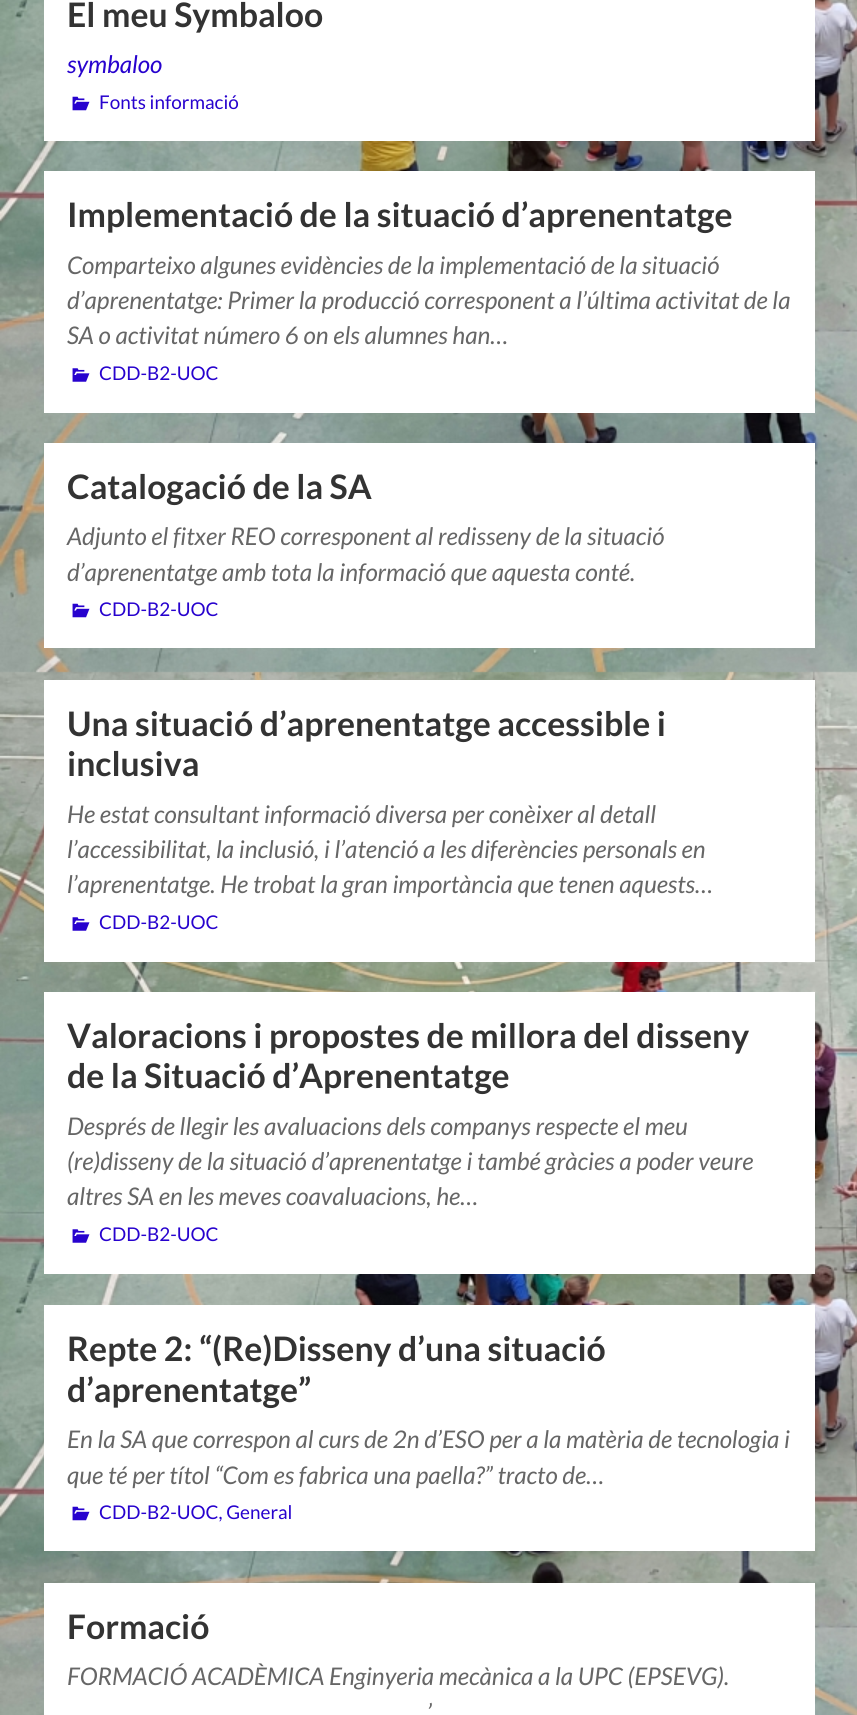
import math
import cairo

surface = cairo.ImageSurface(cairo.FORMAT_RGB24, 857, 1715)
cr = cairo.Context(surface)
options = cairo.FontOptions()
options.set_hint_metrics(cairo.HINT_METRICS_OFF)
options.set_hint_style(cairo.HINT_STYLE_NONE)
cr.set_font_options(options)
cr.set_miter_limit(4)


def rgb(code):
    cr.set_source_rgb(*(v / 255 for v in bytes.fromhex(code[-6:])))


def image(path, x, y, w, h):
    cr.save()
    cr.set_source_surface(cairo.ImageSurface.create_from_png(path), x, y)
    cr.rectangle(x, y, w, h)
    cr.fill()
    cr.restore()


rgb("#ffffff")
cr.paint()
image("img/1.png", 0, 0, 857, 1715)
rgb("#ffffff")
cr.rectangle(44, 0, 771, 141)
cr.fill()
image("img/2.png", 72, 96, 18, 15)
cr.rectangle(44, 171, 771, 242)
cr.fill()
image("img/3.png", 72, 368, 18, 14)
cr.rectangle(44, 443, 771, 205)
cr.fill()
image("img/2.png", 72, 603, 18, 15)
cr.rectangle(44, 680, 771, 282)
cr.fill()
image("img/3.png", 72, 917, 18, 14)
cr.rectangle(44, 992, 771, 282)
cr.fill()
image("img/3.png", 72, 1229, 18, 14)
cr.rectangle(44, 1305, 771, 246)
cr.fill()
image("img/2.png", 72, 1506, 18, 15)
cr.rectangle(44, 1583, 771, 132)
cr.fill()
cr.select_font_face("Lato", cairo.FONT_SLANT_NORMAL, cairo.FONT_WEIGHT_BOLD)
cr.set_font_size(33.75)
rgb("#333333")
cr.move_to(67, 27)
cr.show_text("El meu Symbaloo")
cr.select_font_face("Lato", cairo.FONT_SLANT_ITALIC)
cr.set_font_size(24.3)
rgb("#2702ce")
cr.move_to(67, 73)
cr.show_text("symbaloo")
cr.select_font_face("Lato")
cr.set_font_size(18.9)
cr.move_to(99, 109)
cr.show_text("Fonts informació")
cr.select_font_face("Lato", cairo.FONT_SLANT_NORMAL, cairo.FONT_WEIGHT_BOLD)
cr.set_font_size(33.75)
rgb("#333333")
cr.move_to(67, 227)
cr.show_text("Implementació de la situació d’aprenentatge")
cr.select_font_face("Lato", cairo.FONT_SLANT_ITALIC)
cr.set_font_size(24.3)
rgb("#666666")
for x, y, s in [
    (67, 274, "Comparteixo algunes evidències de la implementació de la situació"),
    (67, 309, "d’aprenentatge: Primer la producció corresponent a l’última activitat de la"),
    (67, 344, "SA o activitat número 6 on els alumnes han…"),
]:
    cr.move_to(x, y)
    cr.show_text(s)
cr.select_font_face("Lato")
cr.set_font_size(18.9)
rgb("#2702ce")
cr.move_to(99, 380)
cr.show_text("CDD-B2-UOC")
cr.select_font_face("Lato", cairo.FONT_SLANT_NORMAL, cairo.FONT_WEIGHT_BOLD)
cr.set_font_size(33.75)
rgb("#333333")
cr.move_to(67, 499)
cr.show_text("Catalogació de la SA")
cr.select_font_face("Lato", cairo.FONT_SLANT_ITALIC)
cr.set_font_size(24.3)
rgb("#666666")
cr.move_to(67, 545)
cr.show_text("Adjunto el fitxer REO corresponent al redisseny de la situació")
cr.move_to(67, 581)
cr.show_text("d’aprenentatge amb tota la informació que aquesta conté.")
cr.select_font_face("Lato")
cr.set_font_size(18.9)
rgb("#2702ce")
cr.move_to(99, 616)
cr.show_text("CDD-B2-UOC")
cr.select_font_face("Lato", cairo.FONT_SLANT_NORMAL, cairo.FONT_WEIGHT_BOLD)
cr.set_font_size(33.75)
rgb("#333333")
cr.move_to(67, 736)
cr.show_text("Una situació d’aprenentatge accessible i")
cr.move_to(67, 776)
cr.show_text("inclusiva")
cr.select_font_face("Lato", cairo.FONT_SLANT_ITALIC)
cr.set_font_size(24.3)
rgb("#666666")
for x, y, s in [
    (67, 823, "He estat consultant informació diversa per conèixer al detall"),
    (67, 858, "l’accessibilitat, la inclusió, i l’atenció a les diferències personals en"),
    (67, 893, "l’aprenentatge. He trobat la gran importància que tenen aquests…"),
]:
    cr.move_to(x, y)
    cr.show_text(s)
cr.select_font_face("Lato")
cr.set_font_size(18.9)
rgb("#2702ce")
cr.move_to(99, 929)
cr.show_text("CDD-B2-UOC")
cr.select_font_face("Lato", cairo.FONT_SLANT_NORMAL, cairo.FONT_WEIGHT_BOLD)
cr.set_font_size(33.75)
rgb("#333333")
cr.move_to(67, 1048)
cr.show_text("Valoracions i propostes de millora del disseny")
cr.move_to(67, 1088)
cr.show_text("de la Situació d’Aprenentatge")
cr.select_font_face("Lato", cairo.FONT_SLANT_ITALIC)
cr.set_font_size(24.3)
rgb("#666666")
for x, y, s in [
    (67, 1135, "Després de llegir les avaluacions dels companys respecte el meu"),
    (67, 1170, "(re)disseny de la situació d’aprenentatge i també gràcies a poder veure"),
    (67, 1205, "altres SA en les meves coavaluacions, he…"),
]:
    cr.move_to(x, y)
    cr.show_text(s)
cr.select_font_face("Lato")
cr.set_font_size(18.9)
rgb("#2702ce")
cr.move_to(99, 1241)
cr.show_text("CDD-B2-UOC")
cr.select_font_face("Lato", cairo.FONT_SLANT_NORMAL, cairo.FONT_WEIGHT_BOLD)
cr.set_font_size(33.75)
rgb("#333333")
cr.move_to(67, 1361)
cr.show_text("Repte 2: “(Re)Disseny d’una situació")
cr.move_to(67, 1402)
cr.show_text("d’aprenentatge”")
cr.select_font_face("Lato", cairo.FONT_SLANT_ITALIC)
cr.set_font_size(24.3)
rgb("#666666")
cr.move_to(67, 1448)
cr.show_text("En la SA que correspon al curs de 2n d’ESO per a la matèria de tecnologia i")
cr.move_to(67, 1484)
cr.show_text("que té per títol “Com es fabrica una paella?” tracto de…")
cr.select_font_face("Lato")
cr.set_font_size(18.9)
rgb("#2702ce")
cr.move_to(99, 1519)
cr.show_text("CDD-B2-UOC, General")
cr.select_font_face("Lato", cairo.FONT_SLANT_NORMAL, cairo.FONT_WEIGHT_BOLD)
cr.set_font_size(33.75)
rgb("#333333")
cr.move_to(67, 1639)
cr.show_text("Formació")
cr.select_font_face("Lato", cairo.FONT_SLANT_ITALIC)
cr.set_font_size(24.3)
rgb("#666666")
cr.move_to(67, 1685)
cr.show_text("FORMACIÓ ACADÈMICA Enginyeria mecànica a la UPC (EPSEVG).")
cr.move_to(427, 1721)
cr.show_text("’")
surface.write_to_png("page.png")
